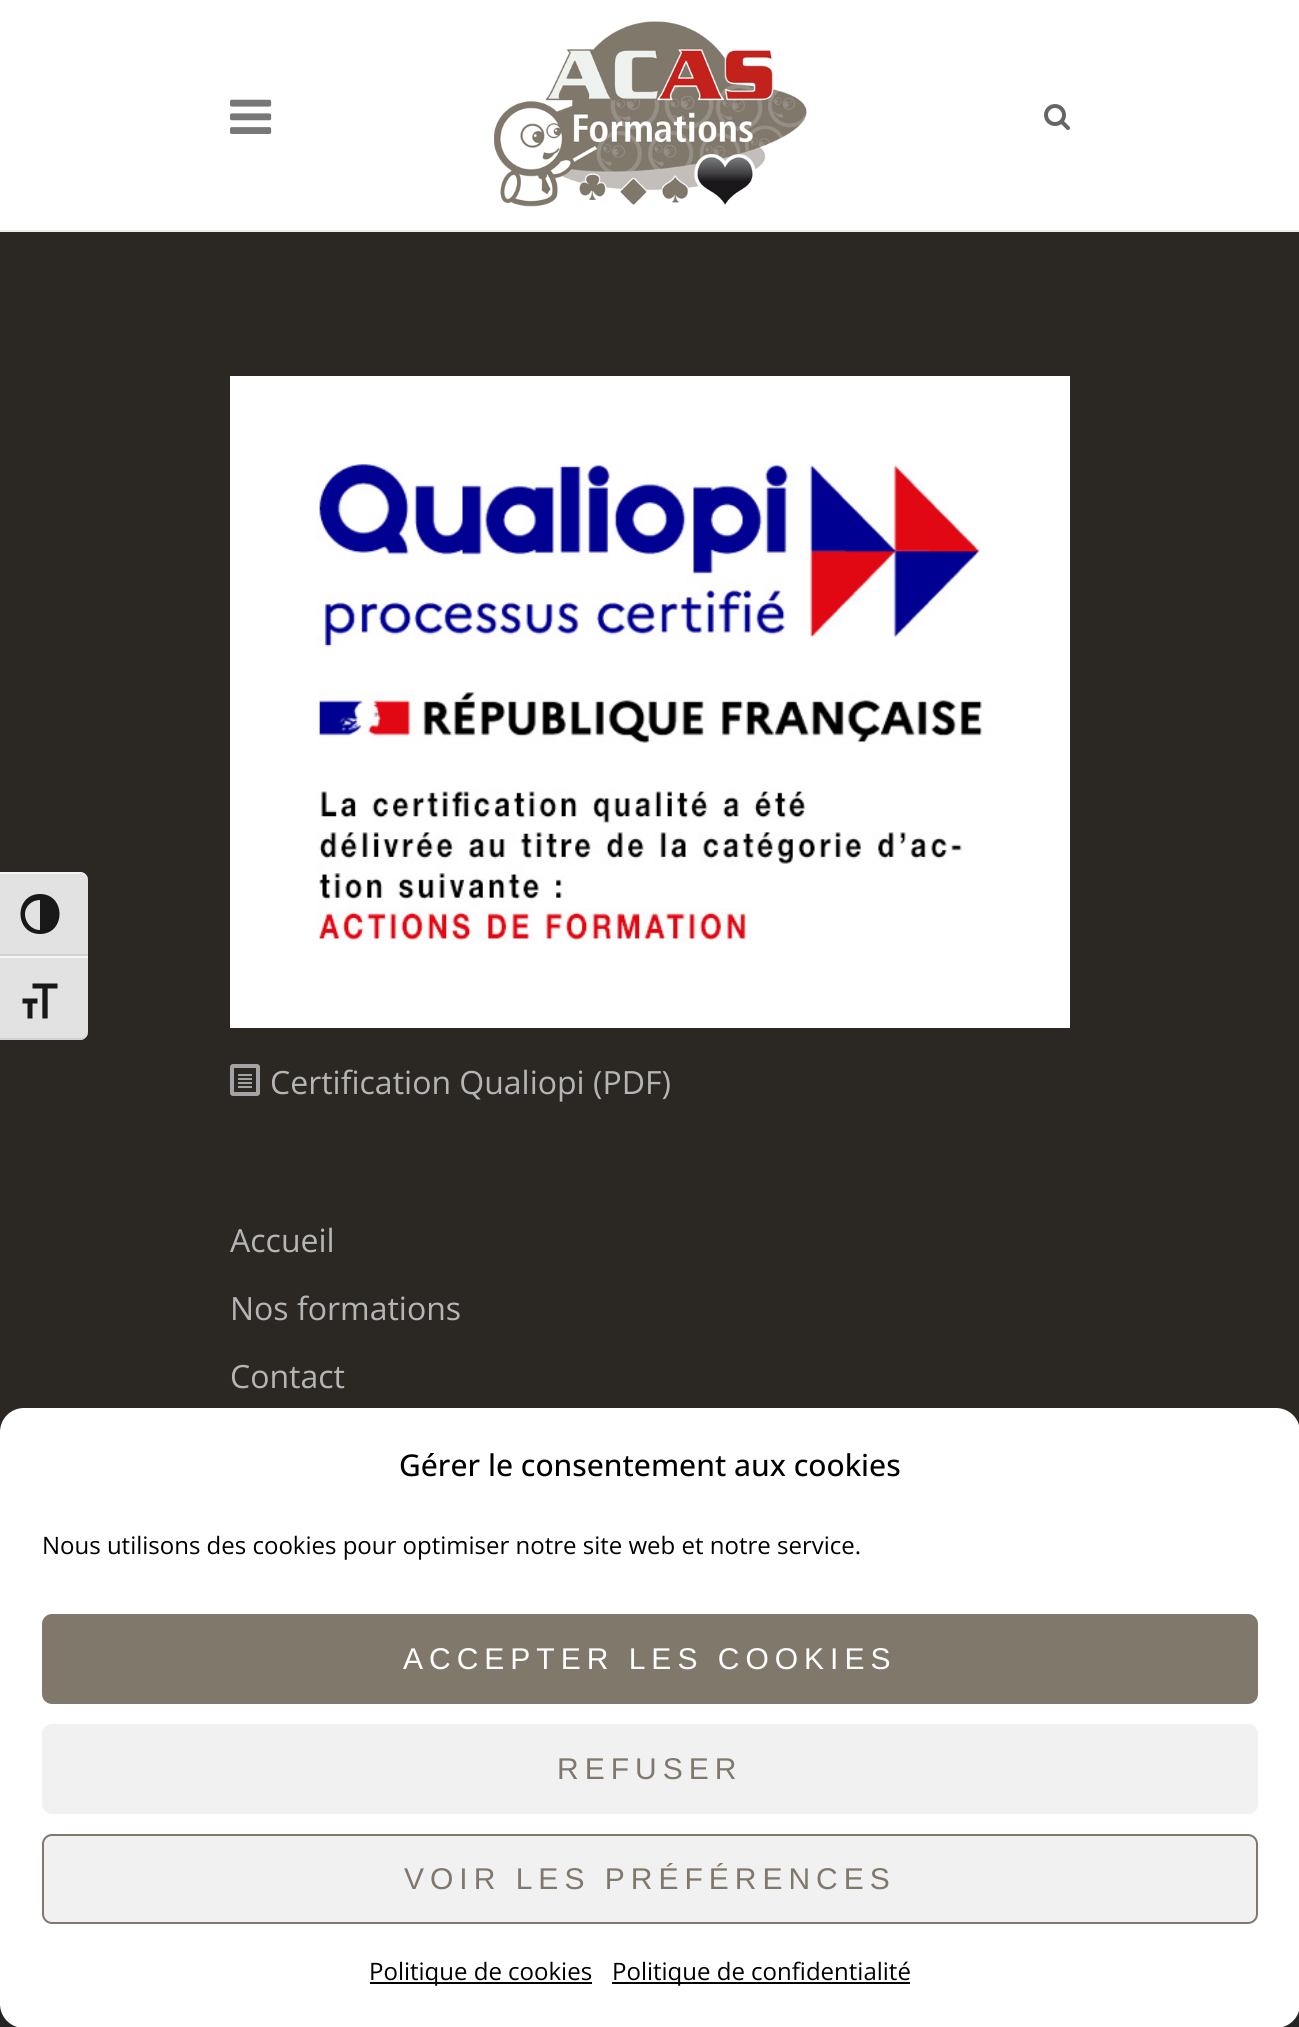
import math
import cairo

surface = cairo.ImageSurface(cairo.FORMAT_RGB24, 1299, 2027)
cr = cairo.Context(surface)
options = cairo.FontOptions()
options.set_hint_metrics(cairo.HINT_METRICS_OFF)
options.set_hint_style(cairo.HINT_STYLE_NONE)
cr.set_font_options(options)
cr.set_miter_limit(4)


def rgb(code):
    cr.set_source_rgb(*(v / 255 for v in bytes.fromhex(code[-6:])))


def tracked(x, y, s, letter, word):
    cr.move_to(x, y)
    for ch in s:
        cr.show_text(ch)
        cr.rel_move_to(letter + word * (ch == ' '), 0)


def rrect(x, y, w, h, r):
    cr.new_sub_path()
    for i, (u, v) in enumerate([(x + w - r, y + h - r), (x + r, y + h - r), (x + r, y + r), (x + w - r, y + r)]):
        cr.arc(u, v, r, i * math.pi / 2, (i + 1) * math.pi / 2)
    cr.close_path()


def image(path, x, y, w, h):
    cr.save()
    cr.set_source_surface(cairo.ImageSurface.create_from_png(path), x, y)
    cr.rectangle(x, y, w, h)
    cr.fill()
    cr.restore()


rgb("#2b2824")
cr.paint()
rgb("#e2e2e2")
cr.new_path()
cr.move_to(0, 872)
cr.line_to(80, 872)
cr.curve_to(84.5, 872, 88, 875.5, 88, 880)
cr.line_to(88, 956)
cr.line_to(0, 956)
cr.close_path()
cr.fill()
rgb("#f5f5f5")
cr.new_path()
cr.move_to(0, 872)
cr.line_to(0, 874)
cr.line_to(80, 874)
cr.curve_to(84, 874, 88, 877, 88, 880)
cr.curve_to(88, 876, 84, 872, 80, 872)
cr.close_path()
cr.fill()
rgb("#d2d2d2")
cr.rectangle(0, 954, 88, 2)
cr.fill()
rgb("#181818")
cr.new_path()
cr.move_to(40, 894)
cr.curve_to(14, 894, 14, 934, 40, 934)
cr.curve_to(66, 934, 66, 894, 40, 894)
cr.close_path()
cr.move_to(25, 914)
cr.curve_to(25, 906, 32, 900, 40, 900)
cr.line_to(40, 930)
cr.curve_to(32, 930, 25, 923, 25, 914)
cr.close_path()
cr.fill()
rgb("#e2e2e2")
cr.new_path()
cr.move_to(0, 956)
cr.line_to(88, 956)
cr.line_to(88, 1032)
cr.curve_to(88, 1036.5, 84.5, 1040, 80, 1040)
cr.line_to(0, 1040)
cr.close_path()
cr.fill()
rgb("#f5f5f5")
cr.rectangle(0, 956, 88, 2)
cr.fill()
rgb("#d2d2d2")
cr.new_path()
cr.move_to(0, 1038)
cr.line_to(0, 1040)
cr.line_to(80, 1040)
cr.curve_to(84, 1040, 88, 1036, 88, 1032)
cr.curve_to(88, 1035, 84, 1038, 80, 1038)
cr.close_path()
cr.fill()
image("img/1.png", 22, 983, 36, 36)
rgb("#ffffff")
cr.rectangle(0, 0, 1299, 230)
cr.fill()
rgb("#ededed")
cr.rectangle(0, 230, 1299, 2)
cr.fill()
image("img/2.png", 230, 99, 42, 35)
image("img/3.png", 494, 21, 313, 186)
image("img/4.png", 1044, 104, 26, 26)
image("img/5.png", 230, 376, 840, 652)
image("img/6.png", 230, 1064, 30, 32)
rgb("#242424")
cr.rectangle(0, 2004, 1299, 23)
cr.fill()
rgb("#ffffff")
rrect(1, 1409, 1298, 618, 23)
cr.fill_preserve()
cr.stroke()
rgb("#81786c")
rrect(43, 1615, 1214, 88, 9)
cr.fill_preserve()
cr.stroke()
rgb("#f1f1f1")
rrect(43, 1725, 1214, 88, 9)
cr.fill_preserve()
cr.stroke()
rrect(43, 1835, 1214, 88, 9)
cr.fill_preserve()
rgb("#81786c")
cr.stroke()
rgb("#000000")
cr.rectangle(370, 1982, 222, 2)
cr.fill()
cr.rectangle(612, 1982, 298, 2)
cr.fill()
cr.select_font_face("Open Sans")
cr.set_font_size(32)
rgb("#b5b5b5")
for x, y, s in [
    (270, 1094, "Certification Qualiopi (PDF)"),
    (230, 1252, "Accueil"),
    (230, 1320, "Nos formations"),
    (230, 1388, "Contact"),
]:
    cr.move_to(x, y)
    cr.show_text(s)
cr.select_font_face("Open Sans Medium")
cr.set_font_size(30)
rgb("#000000")
cr.move_to(399, 1476)
cr.show_text("Gérer le consentement aux cookies")
cr.select_font_face("Open Sans")
cr.set_font_size(24)
cr.move_to(42, 1554)
cr.show_text("Nous utilisons des cookies pour optimiser notre site web et notre service.")
cr.select_font_face("Liberation Sans")
cr.set_font_size(30)
rgb("#ffffff")
tracked(403, 1669, "ACCEPTER LES COOKIES", 6, 0)
rgb("#81786c")
tracked(557, 1779, "REFUSER", 6, 0)
tracked(404, 1889, "VOIR LES PRÉFÉRENCES", 6, 0)
cr.select_font_face("Open Sans")
cr.set_font_size(24)
rgb("#000000")
cr.move_to(369, 1980)
cr.show_text("Politique de cookies")
cr.move_to(612, 1980)
cr.show_text("Politique de confidentialité")
surface.write_to_png("page.png")
